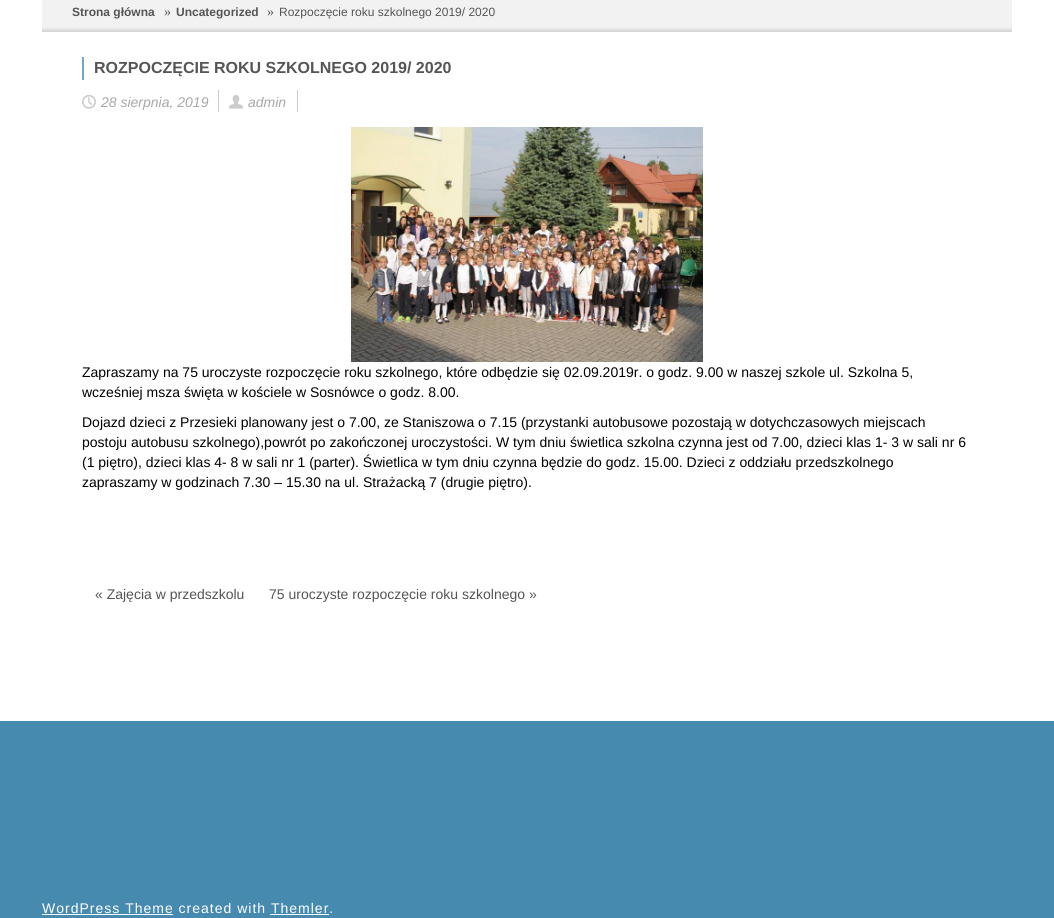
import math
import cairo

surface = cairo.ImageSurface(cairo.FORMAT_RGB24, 1054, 918)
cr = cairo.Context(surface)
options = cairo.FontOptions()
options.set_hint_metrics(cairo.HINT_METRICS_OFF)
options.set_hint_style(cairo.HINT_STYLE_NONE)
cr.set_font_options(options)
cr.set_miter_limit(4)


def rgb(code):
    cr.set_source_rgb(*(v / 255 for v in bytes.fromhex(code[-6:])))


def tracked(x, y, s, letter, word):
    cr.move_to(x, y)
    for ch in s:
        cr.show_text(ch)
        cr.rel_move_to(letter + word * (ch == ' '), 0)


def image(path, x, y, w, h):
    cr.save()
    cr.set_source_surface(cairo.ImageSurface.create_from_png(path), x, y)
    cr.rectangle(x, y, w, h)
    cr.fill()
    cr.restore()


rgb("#ffffff")
cr.paint()
gradient = cairo.LinearGradient(527, 32, 527, -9)
gradient.add_color_stop_rgba(0, 0.827, 0.827, 0.827, 1)
gradient.add_color_stop_rgba(0.12, 0.949, 0.949, 0.949, 1)
gradient.add_color_stop_rgba(0.87, 0.949, 0.949, 0.949, 1)
gradient.add_color_stop_rgba(1, 0.843, 0.843, 0.843, 1)
cr.set_source(gradient)
cr.rectangle(42, 0, 970, 32)
cr.fill()
rgb("#76a8c4")
cr.rectangle(82, 57, 2, 23)
cr.fill()
rgb("#cccccc")
cr.rectangle(218, 90, 1, 22)
cr.fill()
image("img/1.png", 82, 94, 14, 15)
cr.rectangle(297, 90, 1, 22)
cr.fill()
image("img/2.png", 229, 95, 14, 14)
image("img/3.png", 351, 127, 352, 235)
for x, y, w, h, color in [
    (0, 721, 1054, 197, "#478aaf"),
    (42, 914, 131, 1, "#ffffff"),
    (270, 914, 59, 1, "#ffffff"),
]:
    rgb(color)
    cr.rectangle(x, y, w, h)
    cr.fill()
cr.select_font_face("Liberation Sans", cairo.FONT_SLANT_NORMAL, cairo.FONT_WEIGHT_BOLD)
cr.set_font_size(12)
rgb("#555555")
cr.move_to(72, 16)
cr.show_text("Strona główna")
cr.select_font_face("Liberation Serif")
cr.set_font_size(14)
cr.move_to(164, 16)
cr.show_text("»")
cr.select_font_face("Liberation Sans", cairo.FONT_SLANT_NORMAL, cairo.FONT_WEIGHT_BOLD)
cr.set_font_size(12)
cr.move_to(176, 16)
cr.show_text("Uncategorized")
cr.select_font_face("Liberation Serif")
cr.set_font_size(14)
cr.move_to(267, 16)
cr.show_text("»")
cr.select_font_face("Liberation Sans")
cr.set_font_size(12)
cr.move_to(279, 16)
cr.show_text("Rozpoczęcie roku szkolnego 2019/ 2020")
cr.select_font_face("Liberation Sans", cairo.FONT_SLANT_NORMAL, cairo.FONT_WEIGHT_BOLD)
cr.set_font_size(16)
cr.move_to(94, 73)
cr.show_text("ROZPOCZĘCIE ROKU SZKOLNEGO 2019/ 2020")
cr.select_font_face("Liberation Sans", cairo.FONT_SLANT_ITALIC)
cr.set_font_size(14)
rgb("#a8a8a8")
cr.move_to(101, 107)
cr.show_text("28 sierpnia, 2019")
cr.move_to(248, 107)
cr.show_text("admin")
cr.select_font_face("Liberation Sans")
rgb("#000000")
for x, y, s in [
    (82, 377, "Zapraszamy na 75 uroczyste rozpoczęcie roku szkolnego, które odbędzie się 02.09.2019r. o godz. 9.00 w naszej szkole ul. Szkolna 5,"),
    (82, 397, "wcześniej msza święta w kościele w Sosnówce o godz. 8.00."),
    (82, 427, "Dojazd dzieci z Przesieki planowany jest o 7.00, ze Staniszowa o 7.15 (przystanki autobusowe pozostają w dotychczasowych miejscach"),
    (82, 447, "postoju autobusu szkolnego),powrót po zakończonej uroczystości. W tym dniu świetlica szkolna czynna jest od 7.00, dzieci klas 1- 3 w sali nr 6"),
    (82, 467, "(1 piętro), dzieci klas 4- 8 w sali nr 1 (parter). Świetlica w tym dniu czynna będzie do godz. 15.00. Dzieci z oddziału przedszkolnego"),
    (82, 487, "zapraszamy w godzinach 7.30 – 15.30 na ul. Strażacką 7 (drugie piętro)."),
]:
    cr.move_to(x, y)
    cr.show_text(s)
rgb("#555555")
cr.move_to(95, 599)
cr.show_text("« Zajęcia w przedszkolu")
cr.move_to(269, 599)
cr.show_text("75 uroczyste rozpoczęcie roku szkolnego »")
rgb("#ffffff")
tracked(42, 913, "WordPress Theme created with Themler.", 1, 0)
surface.write_to_png("page.png")
